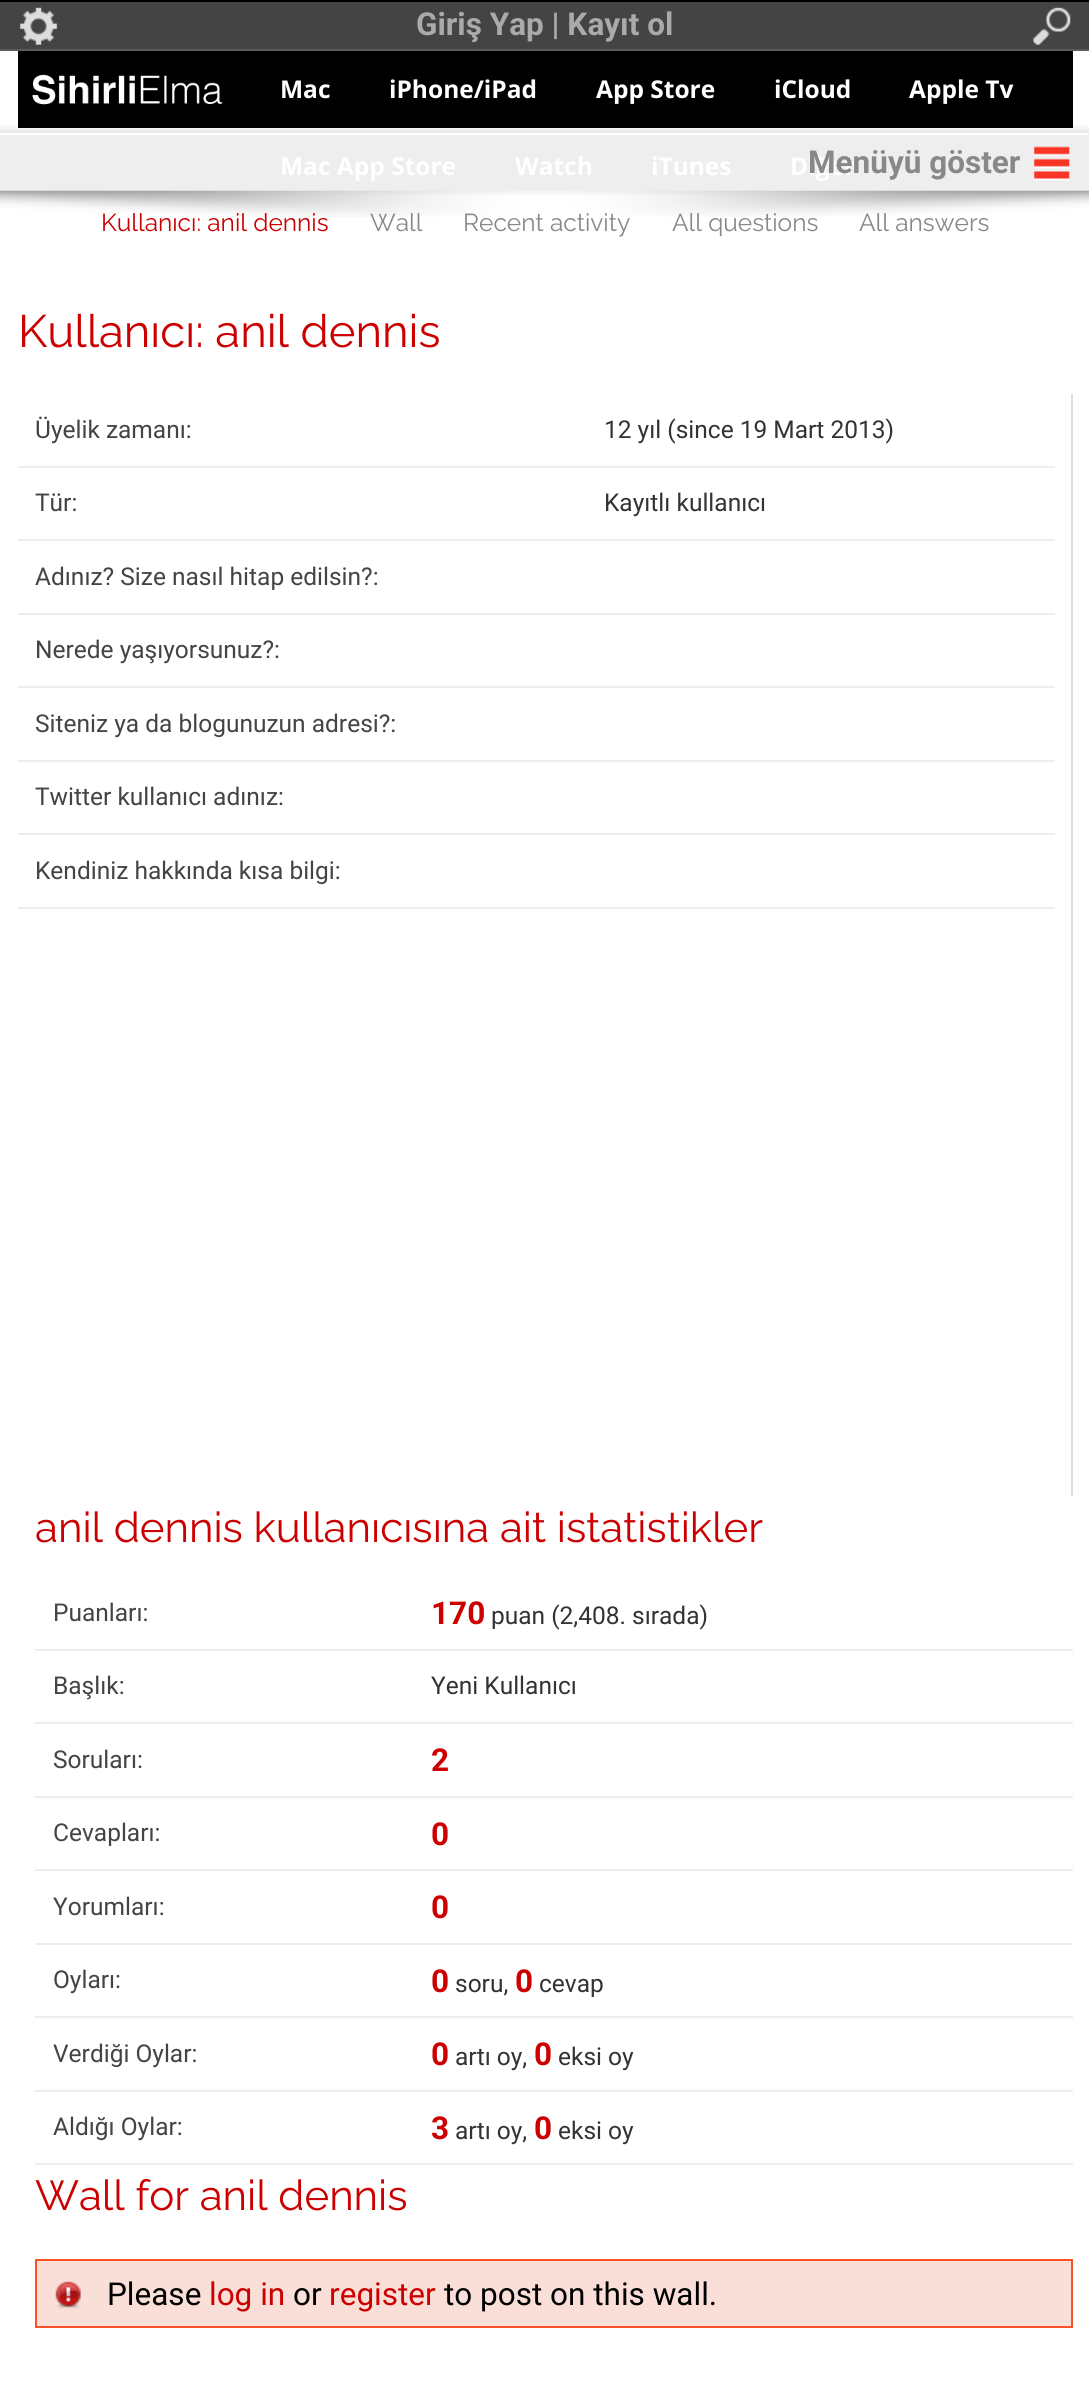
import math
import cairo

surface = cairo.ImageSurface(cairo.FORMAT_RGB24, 1089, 2395)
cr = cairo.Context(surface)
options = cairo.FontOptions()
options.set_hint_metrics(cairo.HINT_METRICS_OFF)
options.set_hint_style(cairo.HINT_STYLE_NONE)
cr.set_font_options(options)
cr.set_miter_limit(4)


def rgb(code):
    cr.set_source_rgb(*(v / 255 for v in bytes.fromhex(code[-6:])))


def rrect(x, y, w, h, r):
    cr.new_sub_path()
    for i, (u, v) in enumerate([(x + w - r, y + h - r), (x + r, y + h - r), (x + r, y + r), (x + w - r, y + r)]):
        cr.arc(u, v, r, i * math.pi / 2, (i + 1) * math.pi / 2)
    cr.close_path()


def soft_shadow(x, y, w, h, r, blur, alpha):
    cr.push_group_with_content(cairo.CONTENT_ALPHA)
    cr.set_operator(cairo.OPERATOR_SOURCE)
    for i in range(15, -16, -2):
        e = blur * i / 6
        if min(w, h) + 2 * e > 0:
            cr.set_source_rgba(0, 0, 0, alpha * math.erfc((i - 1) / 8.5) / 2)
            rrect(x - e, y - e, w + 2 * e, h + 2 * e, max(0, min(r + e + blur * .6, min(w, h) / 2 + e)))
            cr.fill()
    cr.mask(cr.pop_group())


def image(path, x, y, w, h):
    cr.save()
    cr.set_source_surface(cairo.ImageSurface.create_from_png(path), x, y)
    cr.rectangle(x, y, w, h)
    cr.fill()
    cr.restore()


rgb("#ffffff")
cr.paint()
for x, y, w, h, color in [
    (0, 49, 1089, 2, "#5b5b5b"),
    (0, 2, 1089, 47, "#444444"),
    (0, 0, 1089, 2, "#000000"),
]:
    rgb(color)
    cr.rectangle(x, y, w, h)
    cr.fill()
image("img/1.png", 20, 7, 38, 38)
image("img/2.png", 1033, 7, 38, 38)
cr.rectangle(18, 51, 1055, 77)
cr.fill()
image("img/3.png", 32, 74, 191, 31)
rgb("#000000")
soft_shadow(0, 131, 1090, 58, 0, 4.5, 0.15)
rgb("#eeeeee")
cr.rectangle(0, 135, 1089, 56)
cr.fill()
image("img/4.png", 1034, 146, 36, 35)
rgb("#ffffff")
cr.rectangle(0, 133, 1089, 2)
cr.fill()
image("img/5.png", 0, 190, 1089, 27)
for x, y, w, h, color in [
    (1071, 394, 2, 1102, "#dddddd"),
    (18, 466, 1037, 2, "#eeeeee"),
    (18, 539, 1037, 2, "#eeeeee"),
    (18, 613, 1037, 2, "#eeeeee"),
    (18, 686, 1037, 2, "#eeeeee"),
    (18, 760, 1037, 2, "#eeeeee"),
    (18, 833, 1037, 2, "#eeeeee"),
    (18, 907, 1037, 2, "#eeeeee"),
    (35, 1649, 1038, 2, "#eeeeee"),
    (35, 1722, 1038, 2, "#eeeeee"),
    (35, 1796, 1038, 2, "#eeeeee"),
    (35, 1869, 1038, 2, "#eeeeee"),
    (35, 1943, 1038, 2, "#eeeeee"),
    (35, 2016, 1038, 2, "#eeeeee"),
    (35, 2090, 1038, 2, "#eeeeee"),
    (35, 2163, 1038, 2, "#eeeeee"),
    (37, 2261, 1034, 65, "#f9dfd8"),
]:
    rgb(color)
    cr.rectangle(x, y, w, h)
    cr.fill()
image("img/6.png", 55, 2281, 26, 28)
cr.rectangle(36, 2260, 1036, 67)
rgb("#f95225")
cr.stroke()
cr.select_font_face("Roboto", cairo.FONT_SLANT_NORMAL, cairo.FONT_WEIGHT_BOLD)
cr.set_font_size(31.5)
rgb("#aaaaaa")
cr.move_to(416, 35)
cr.show_text("Giriş Yap | Kayıt ol")
cr.select_font_face("Open Sans", cairo.FONT_SLANT_NORMAL, cairo.FONT_WEIGHT_BOLD)
cr.set_font_size(24.5)
rgb("#ffffff")
for x, y, s in [
    (280, 98, "Mac"),
    (389, 98, "iPhone/iPad"),
    (596, 98, "App Store"),
    (774, 98, "iCloud"),
    (909, 98, "Apple Tv"),
    (280, 175, "Mac App Store"),
    (515, 175, "Watch"),
    (651, 175, "iTunes"),
    (790, 175, "Diğer"),
]:
    cr.move_to(x, y)
    cr.show_text(s)
cr.select_font_face("Roboto", cairo.FONT_SLANT_NORMAL, cairo.FONT_WEIGHT_BOLD)
cr.set_font_size(31.5)
rgb("#888888")
cr.move_to(808, 173)
cr.show_text("Menüyü göster")
cr.select_font_face("Raleway")
cr.set_font_size(24.5)
rgb("#cc0000")
cr.move_to(101, 231)
cr.show_text("Kullanıcı: anil dennis")
rgb("#888888")
for x, y, s in [
    (370, 231, "Wall"),
    (463, 231, "Recent activity"),
    (672, 231, "All questions"),
    (859, 231, "All answers"),
]:
    cr.move_to(x, y)
    cr.show_text(s)
cr.set_font_size(45.5)
rgb("#cc0000")
cr.move_to(18, 347)
cr.show_text("Kullanıcı: anil dennis")
cr.select_font_face("Roboto")
cr.set_font_size(24.5)
rgb("#444444")
cr.move_to(35, 438)
cr.show_text("Üyelik zamanı:")
rgb("#333333")
cr.move_to(604, 438)
cr.show_text("12 yıl (since 19 Mart 2013)")
rgb("#444444")
cr.move_to(35, 511)
cr.show_text("Tür:")
rgb("#333333")
cr.move_to(604, 511)
cr.show_text("Kayıtlı kullanıcı")
rgb("#444444")
for x, y, s in [
    (35, 585, "Adınız? Size nasıl hitap edilsin?:"),
    (35, 658, "Nerede yaşıyorsunuz?:"),
    (35, 732, "Siteniz ya da blogunuzun adresi?:"),
    (35, 805, "Twitter kullanıcı adınız:"),
    (35, 879, "Kendiniz hakkında kısa bilgi:"),
]:
    cr.move_to(x, y)
    cr.show_text(s)
cr.select_font_face("Raleway")
cr.set_font_size(42)
rgb("#cc0000")
cr.move_to(35, 1542)
cr.show_text("anil dennis kullanıcısına ait istatistikler")
cr.select_font_face("Roboto")
cr.set_font_size(24.5)
rgb("#444444")
cr.move_to(53, 1621)
cr.show_text("Puanları:")
cr.select_font_face("Roboto", cairo.FONT_SLANT_NORMAL, cairo.FONT_WEIGHT_BOLD)
cr.set_font_size(31.5)
rgb("#cc0000")
cr.move_to(431, 1624)
cr.show_text("170")
cr.select_font_face("Roboto")
cr.set_font_size(24.5)
rgb("#333333")
cr.move_to(491, 1624)
cr.show_text("puan (2,408. sırada)")
rgb("#444444")
cr.move_to(53, 1694)
cr.show_text("Başlık:")
rgb("#333333")
cr.move_to(431, 1694)
cr.show_text("Yeni Kullanıcı")
rgb("#444444")
cr.move_to(53, 1768)
cr.show_text("Soruları:")
cr.select_font_face("Roboto", cairo.FONT_SLANT_NORMAL, cairo.FONT_WEIGHT_BOLD)
cr.set_font_size(31.5)
rgb("#cc0000")
cr.move_to(431, 1771)
cr.show_text("2")
cr.select_font_face("Roboto")
cr.set_font_size(24.5)
rgb("#444444")
cr.move_to(53, 1841)
cr.show_text("Cevapları:")
cr.select_font_face("Roboto", cairo.FONT_SLANT_NORMAL, cairo.FONT_WEIGHT_BOLD)
cr.set_font_size(31.5)
rgb("#cc0000")
cr.move_to(431, 1845)
cr.show_text("0")
cr.select_font_face("Roboto")
cr.set_font_size(24.5)
rgb("#444444")
cr.move_to(53, 1915)
cr.show_text("Yorumları:")
cr.select_font_face("Roboto", cairo.FONT_SLANT_NORMAL, cairo.FONT_WEIGHT_BOLD)
cr.set_font_size(31.5)
rgb("#cc0000")
cr.move_to(431, 1918)
cr.show_text("0")
cr.select_font_face("Roboto")
cr.set_font_size(24.5)
rgb("#444444")
cr.move_to(53, 1988)
cr.show_text("Oyları:")
cr.select_font_face("Roboto", cairo.FONT_SLANT_NORMAL, cairo.FONT_WEIGHT_BOLD)
cr.set_font_size(31.5)
rgb("#cc0000")
cr.move_to(431, 1992)
cr.show_text("0")
cr.select_font_face("Roboto")
cr.set_font_size(24.5)
rgb("#333333")
cr.move_to(455, 1992)
cr.show_text("soru,")
cr.select_font_face("Roboto", cairo.FONT_SLANT_NORMAL, cairo.FONT_WEIGHT_BOLD)
cr.set_font_size(31.5)
rgb("#cc0000")
cr.move_to(515, 1992)
cr.show_text("0")
cr.select_font_face("Roboto")
cr.set_font_size(24.5)
rgb("#333333")
cr.move_to(539, 1992)
cr.show_text("cevap")
rgb("#444444")
cr.move_to(53, 2062)
cr.show_text("Verdiği Oylar:")
cr.select_font_face("Roboto", cairo.FONT_SLANT_NORMAL, cairo.FONT_WEIGHT_BOLD)
cr.set_font_size(31.5)
rgb("#cc0000")
cr.move_to(431, 2065)
cr.show_text("0")
cr.select_font_face("Roboto")
cr.set_font_size(24.5)
rgb("#333333")
cr.move_to(455, 2065)
cr.show_text("artı oy,")
cr.select_font_face("Roboto", cairo.FONT_SLANT_NORMAL, cairo.FONT_WEIGHT_BOLD)
cr.set_font_size(31.5)
rgb("#cc0000")
cr.move_to(534, 2065)
cr.show_text("0")
cr.select_font_face("Roboto")
cr.set_font_size(24.5)
rgb("#333333")
cr.move_to(558, 2065)
cr.show_text("eksi oy")
rgb("#444444")
cr.move_to(53, 2135)
cr.show_text("Aldığı Oylar:")
cr.select_font_face("Roboto", cairo.FONT_SLANT_NORMAL, cairo.FONT_WEIGHT_BOLD)
cr.set_font_size(31.5)
rgb("#cc0000")
cr.move_to(431, 2139)
cr.show_text("3")
cr.select_font_face("Roboto")
cr.set_font_size(24.5)
rgb("#333333")
cr.move_to(455, 2139)
cr.show_text("artı oy,")
cr.select_font_face("Roboto", cairo.FONT_SLANT_NORMAL, cairo.FONT_WEIGHT_BOLD)
cr.set_font_size(31.5)
rgb("#cc0000")
cr.move_to(534, 2139)
cr.show_text("0")
cr.select_font_face("Roboto")
cr.set_font_size(24.5)
rgb("#333333")
cr.move_to(558, 2139)
cr.show_text("eksi oy")
cr.select_font_face("Raleway")
cr.set_font_size(42)
rgb("#cc0000")
cr.move_to(35, 2210)
cr.show_text("Wall for anil dennis")
cr.select_font_face("Roboto")
cr.set_font_size(31.5)
rgb("#000000")
cr.move_to(107, 2305)
cr.show_text("Please")
rgb("#cc0000")
cr.move_to(209, 2305)
cr.show_text("log in")
rgb("#000000")
cr.move_to(293, 2305)
cr.show_text("or")
rgb("#cc0000")
cr.move_to(329, 2305)
cr.show_text("register")
rgb("#000000")
cr.move_to(444, 2305)
cr.show_text("to post on this wall.")
surface.write_to_png("page.png")
